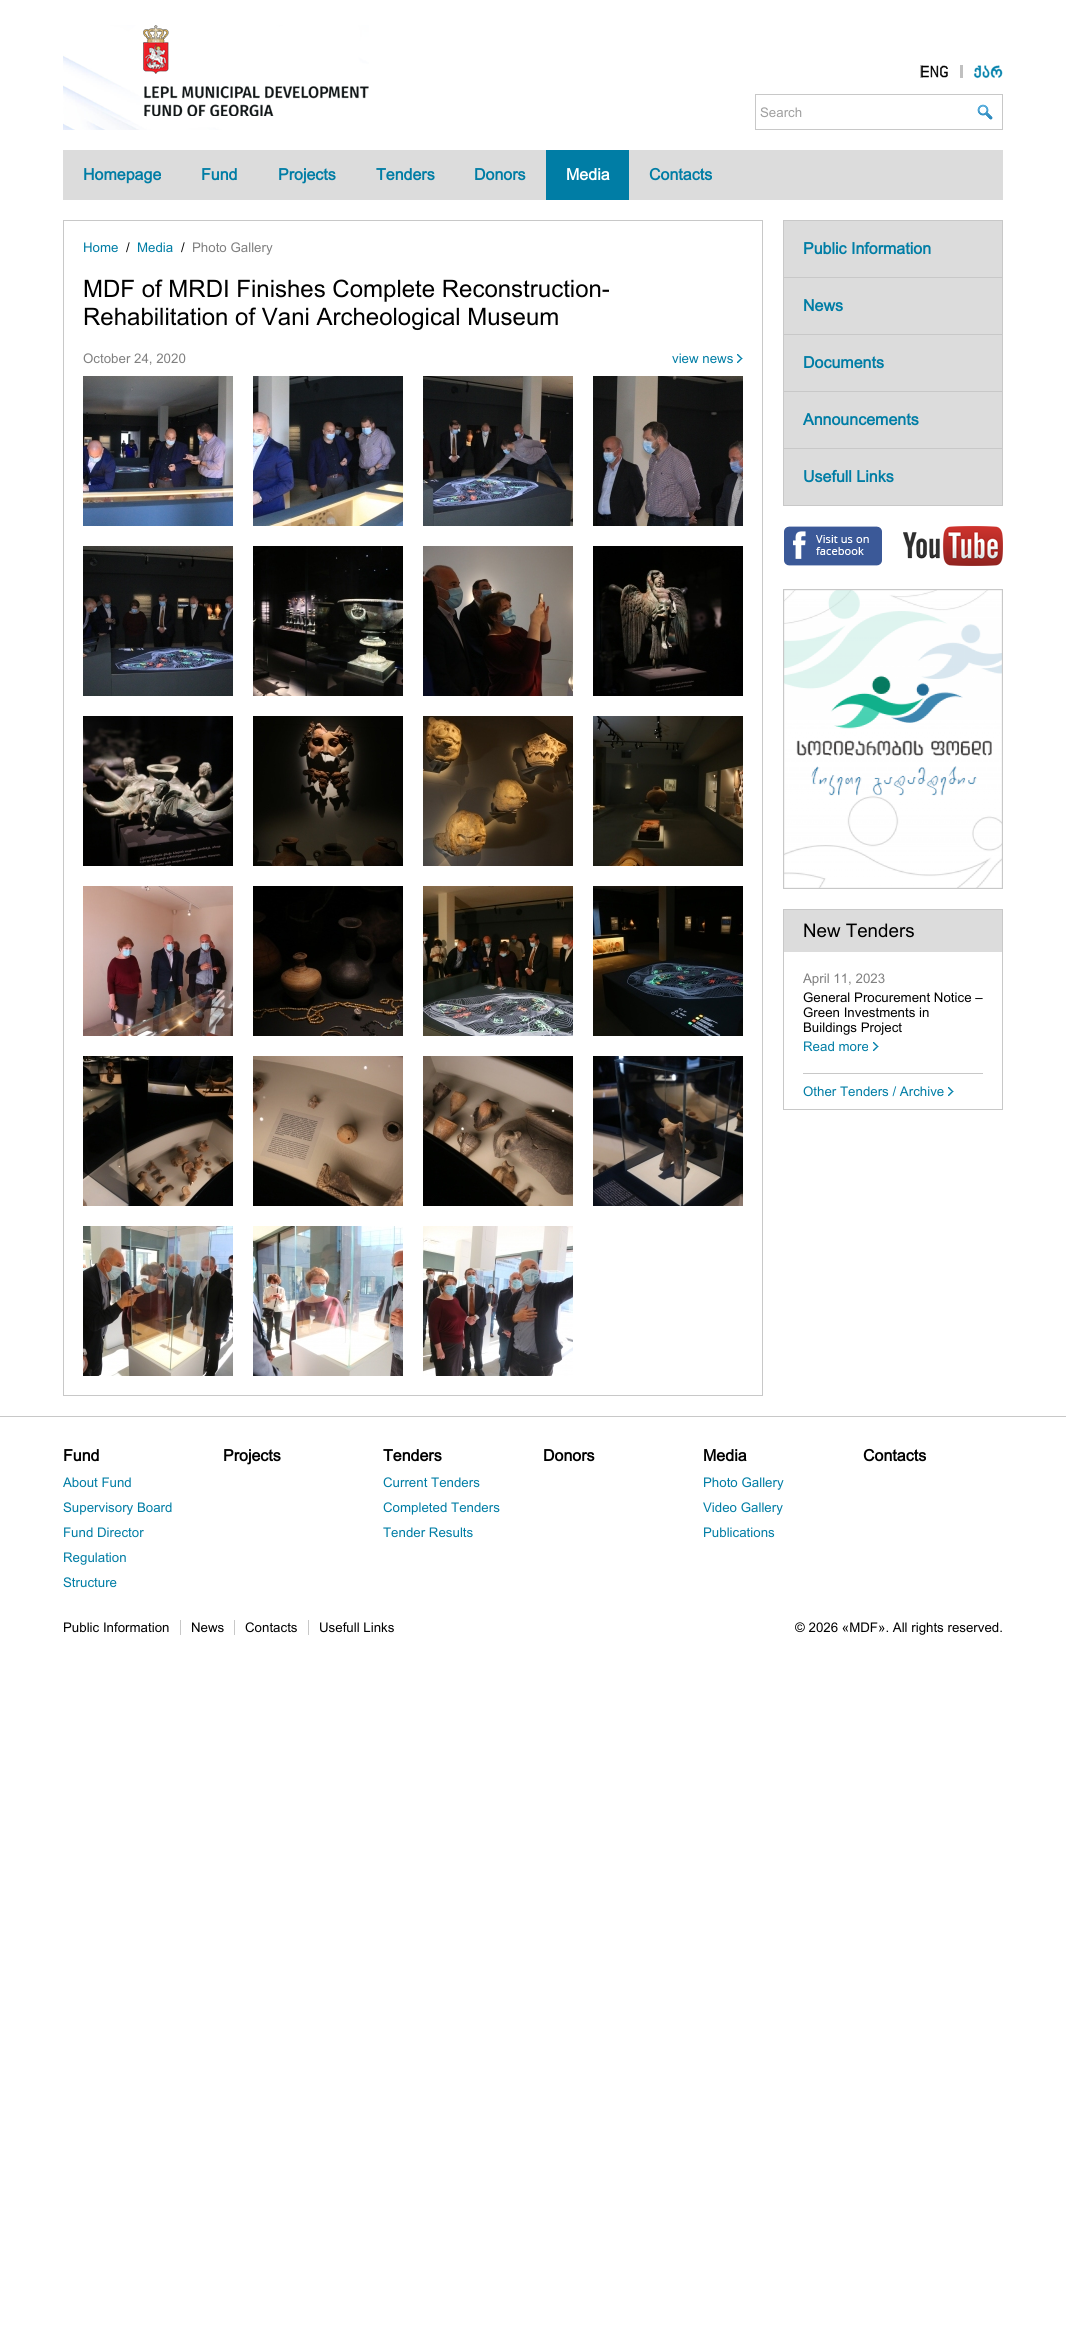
import math
import cairo

surface = cairo.ImageSurface(cairo.FORMAT_RGB24, 1066, 2338)
cr = cairo.Context(surface)
options = cairo.FontOptions()
options.set_hint_metrics(cairo.HINT_METRICS_OFF)
options.set_hint_style(cairo.HINT_STYLE_NONE)
cr.set_font_options(options)
cr.set_miter_limit(4)


def rgb(code):
    cr.set_source_rgb(*(v / 255 for v in bytes.fromhex(code[-6:])))


def image(path, x, y, w, h):
    cr.save()
    cr.set_source_surface(cairo.ImageSurface.create_from_png(path), x, y)
    cr.rectangle(x, y, w, h)
    cr.fill()
    cr.restore()


rgb("#ffffff")
cr.paint()
image("img/1.png", 63, 25, 306, 105)
rgb("#c0c0c0")
cr.rectangle(920, 65, 3, 13)
cr.fill()
image("img/2.png", 921, 65, 27, 13)
cr.rectangle(960, 65, 3, 13)
cr.fill()
image("img/3.png", 973, 65, 30, 14)
cr.rectangle(755.5, 94.5, 247, 35)
rgb("#c8c8c8")
cr.set_line_width(1)
cr.stroke()
image("img/4.png", 977, 104, 16, 16)
rgb("#dcdcdc")
cr.rectangle(63, 150, 940, 50)
cr.fill()
rgb("#007da5")
cr.rectangle(546, 150, 83, 50)
cr.fill()
cr.rectangle(63.5, 220.5, 699, 1175)
rgb("#c8c8c8")
cr.stroke()
image("img/5.png", 737, 354, 6, 9)
image("img/6.png", 83, 376, 150, 150)
image("img/7.png", 253, 376, 150, 150)
image("img/8.png", 423, 376, 150, 150)
image("img/9.png", 593, 376, 150, 150)
image("img/10.png", 83, 546, 150, 150)
image("img/11.png", 253, 546, 150, 150)
image("img/12.png", 423, 546, 150, 150)
image("img/13.png", 593, 546, 150, 150)
image("img/14.png", 83, 716, 150, 150)
image("img/15.png", 253, 716, 150, 150)
image("img/16.png", 423, 716, 150, 150)
image("img/17.png", 593, 716, 150, 150)
image("img/18.png", 83, 886, 150, 150)
image("img/19.png", 253, 886, 150, 150)
image("img/20.png", 423, 886, 150, 150)
image("img/21.png", 593, 886, 150, 150)
image("img/22.png", 83, 1056, 150, 150)
image("img/23.png", 253, 1056, 150, 150)
image("img/24.png", 423, 1056, 150, 150)
image("img/25.png", 593, 1056, 150, 150)
image("img/26.png", 83, 1226, 150, 150)
image("img/27.png", 253, 1226, 150, 150)
image("img/28.png", 423, 1226, 150, 150)
cr.rectangle(783.5, 220.5, 219, 285)
cr.stroke()
for x, y, w, h, color in [
    (784, 221, 218, 284, "#dcdcdc"),
    (784, 277, 218, 1, "#c8c8c8"),
    (784, 334, 218, 1, "#c8c8c8"),
    (784, 391, 218, 1, "#c8c8c8"),
    (784, 448, 218, 1, "#c8c8c8"),
]:
    rgb(color)
    cr.rectangle(x, y, w, h)
    cr.fill()
image("img/29.png", 784, 526, 98, 40)
image("img/30.png", 903, 526, 100, 40)
image("img/31.png", 784, 590, 218, 298)
cr.rectangle(783.5, 589.5, 219, 299)
cr.stroke()
cr.rectangle(783.5, 909.5, 219, 200)
cr.stroke()
rgb("#dcdcdc")
cr.rectangle(784, 910, 218, 42)
cr.fill()
image("img/5.png", 873, 1042, 6, 9)
rgb("#c8c8c8")
cr.rectangle(803, 1073, 180, 1)
cr.fill()
image("img/5.png", 948, 1087, 6, 9)
for x, y, w, h, color in [
    (0, 1416, 1066, 1, "#c8c8c8"),
    (180, 1620, 1, 15, "#c8c8c8"),
    (234, 1620, 1, 15, "#c8c8c8"),
    (308, 1620, 1, 15, "#c8c8c8"),
]:
    rgb(color)
    cr.rectangle(x, y, w, h)
    cr.fill()
cr.select_font_face("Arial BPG")
cr.set_font_size(13.3)
rgb("#a0a0a0")
cr.move_to(760, 117)
cr.show_text("Search")
cr.select_font_face("Arial BPG", cairo.FONT_SLANT_NORMAL, cairo.FONT_WEIGHT_BOLD)
cr.set_font_size(16)
rgb("#007da5")
for x, y, s in [
    (83, 180, "Homepage"),
    (201, 180, "Fund"),
    (278, 180, "Projects"),
    (376, 180, "Tenders"),
    (474, 180, "Donors"),
]:
    cr.move_to(x, y)
    cr.show_text(s)
rgb("#ffffff")
cr.move_to(566, 180)
cr.show_text("Media")
rgb("#007da5")
cr.move_to(649, 180)
cr.show_text("Contacts")
cr.select_font_face("Arial BPG")
cr.set_font_size(13.3)
cr.move_to(83, 252)
cr.show_text("Home")
rgb("#000000")
cr.move_to(126, 252)
cr.show_text("/")
rgb("#007da5")
cr.move_to(137, 252)
cr.show_text("Media")
rgb("#000000")
cr.move_to(181, 252)
cr.show_text("/")
rgb("#808080")
cr.move_to(192, 252)
cr.show_text("Photo Gallery")
cr.set_font_size(24)
rgb("#000000")
cr.move_to(83, 297)
cr.show_text("MDF of MRDI Finishes Complete Reconstruction-")
cr.move_to(83, 325)
cr.show_text("Rehabilitation of Vani Archeological Museum")
cr.set_font_size(13.3)
rgb("#808080")
cr.move_to(83, 363)
cr.show_text("October 24, 2020")
rgb("#007da5")
cr.move_to(672, 363)
cr.show_text("view news")
cr.select_font_face("Arial BPG", cairo.FONT_SLANT_NORMAL, cairo.FONT_WEIGHT_BOLD)
cr.set_font_size(16)
for x, y, s in [
    (803, 254, "Public Information"),
    (803, 311, "News"),
    (803, 368, "Documents"),
    (803, 425, "Announcements"),
    (803, 482, "Usefull Links"),
]:
    cr.move_to(x, y)
    cr.show_text(s)
cr.select_font_face("Arial BPG")
cr.set_font_size(18.75)
rgb("#000000")
cr.move_to(803, 937)
cr.show_text("New Tenders")
cr.set_font_size(13.3)
rgb("#808080")
cr.move_to(803, 983)
cr.show_text("April 11, 2023")
rgb("#000000")
for x, y, s in [
    (803, 1002, "General Procurement Notice –"),
    (803, 1017, "Green Investments in"),
    (803, 1032, "Buildings Project"),
]:
    cr.move_to(x, y)
    cr.show_text(s)
rgb("#007da5")
cr.move_to(803, 1051)
cr.show_text("Read more")
cr.move_to(803, 1096)
cr.show_text("Other Tenders / Archive")
cr.select_font_face("Arial BPG", cairo.FONT_SLANT_NORMAL, cairo.FONT_WEIGHT_BOLD)
cr.set_font_size(16)
rgb("#000000")
cr.move_to(63, 1461)
cr.show_text("Fund")
cr.select_font_face("Arial BPG")
cr.set_font_size(13.3)
rgb("#007da5")
for x, y, s in [
    (63, 1487, "About Fund"),
    (63, 1512, "Supervisory Board"),
    (63, 1537, "Fund Director"),
    (63, 1562, "Regulation"),
    (63, 1587, "Structure"),
]:
    cr.move_to(x, y)
    cr.show_text(s)
cr.select_font_face("Arial BPG", cairo.FONT_SLANT_NORMAL, cairo.FONT_WEIGHT_BOLD)
cr.set_font_size(16)
rgb("#000000")
cr.move_to(223, 1461)
cr.show_text("Projects")
cr.move_to(383, 1461)
cr.show_text("Tenders")
cr.select_font_face("Arial BPG")
cr.set_font_size(13.3)
rgb("#007da5")
for x, y, s in [
    (383, 1487, "Current Tenders"),
    (383, 1512, "Completed Tenders"),
    (383, 1537, "Tender Results"),
]:
    cr.move_to(x, y)
    cr.show_text(s)
cr.select_font_face("Arial BPG", cairo.FONT_SLANT_NORMAL, cairo.FONT_WEIGHT_BOLD)
cr.set_font_size(16)
rgb("#000000")
cr.move_to(543, 1461)
cr.show_text("Donors")
cr.move_to(703, 1461)
cr.show_text("Media")
cr.select_font_face("Arial BPG")
cr.set_font_size(13.3)
rgb("#007da5")
for x, y, s in [
    (703, 1487, "Photo Gallery"),
    (703, 1512, "Video Gallery"),
    (703, 1537, "Publications"),
]:
    cr.move_to(x, y)
    cr.show_text(s)
cr.select_font_face("Arial BPG", cairo.FONT_SLANT_NORMAL, cairo.FONT_WEIGHT_BOLD)
cr.set_font_size(16)
rgb("#000000")
cr.move_to(863, 1461)
cr.show_text("Contacts")
cr.select_font_face("Arial BPG")
cr.set_font_size(13.3)
for x, y, s in [
    (63, 1632, "Public Information"),
    (191, 1632, "News"),
    (245, 1632, "Contacts"),
    (319, 1632, "Usefull Links"),
    (795, 1632, "© 2026 «MDF». All rights reserved."),
]:
    cr.move_to(x, y)
    cr.show_text(s)
surface.write_to_png("page.png")
